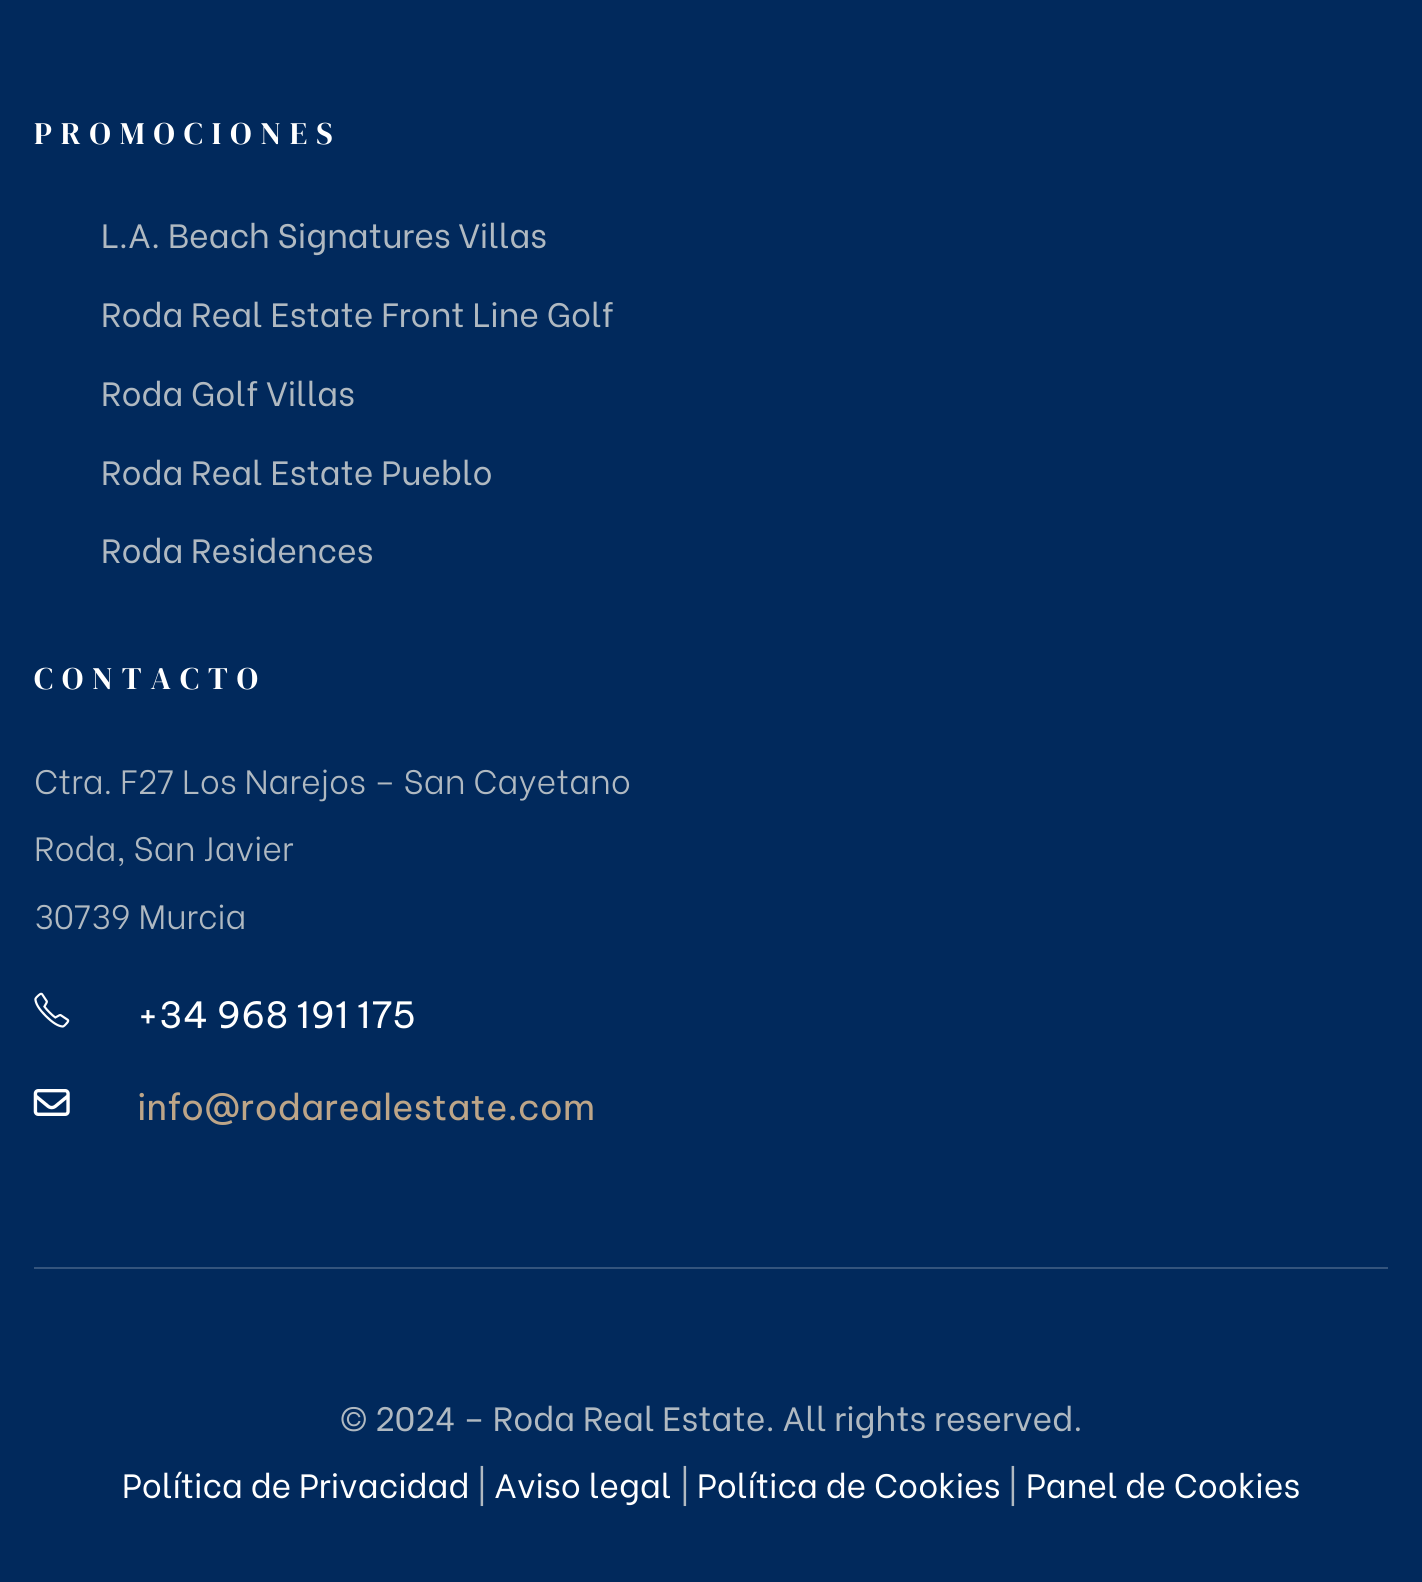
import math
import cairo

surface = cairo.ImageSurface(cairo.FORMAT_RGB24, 1422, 1582)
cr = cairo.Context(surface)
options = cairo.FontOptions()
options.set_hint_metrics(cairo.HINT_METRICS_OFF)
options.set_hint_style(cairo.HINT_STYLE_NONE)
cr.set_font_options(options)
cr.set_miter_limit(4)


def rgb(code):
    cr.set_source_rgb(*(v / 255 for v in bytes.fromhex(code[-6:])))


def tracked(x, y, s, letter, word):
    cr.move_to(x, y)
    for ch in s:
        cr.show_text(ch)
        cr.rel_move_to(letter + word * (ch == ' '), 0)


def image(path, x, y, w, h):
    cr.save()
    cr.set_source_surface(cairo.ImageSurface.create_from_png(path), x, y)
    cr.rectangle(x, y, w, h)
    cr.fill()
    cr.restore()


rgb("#01295c")
cr.paint()
image("img/1.png", 34, 992, 36, 36)
image("img/2.png", 33, 1089, 37, 27)
rgb("#34547d")
cr.rectangle(34, 1267, 1354, 2)
cr.fill()
cr.select_font_face("DM Serif Display")
cr.set_font_size(31.5)
rgb("#ffffff")
tracked(34, 144, "PROMOCIONES", 9, 0)
cr.select_font_face("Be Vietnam")
cr.set_font_size(33.75)
rgb("#b0b9c1")
for x, y, s in [
    (101, 248, "L.A. Beach Signatures Villas"),
    (101, 327, "Roda Real Estate Front Line Golf"),
    (101, 406, "Roda Golf Villas"),
    (101, 485, "Roda Real Estate Pueblo"),
    (101, 563, "Roda Residences"),
]:
    cr.move_to(x, y)
    cr.show_text(s)
cr.select_font_face("DM Serif Display")
cr.set_font_size(31.5)
rgb("#ffffff")
tracked(34, 689, "CONTACTO", 9, 0)
cr.select_font_face("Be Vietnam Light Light")
cr.set_font_size(33.75)
rgb("#b0b9c1")
for x, y, s in [
    (34, 794, "Ctra. F27 Los Narejos – San Cayetano"),
    (34, 861, "Roda, San Javier"),
    (34, 929, "30739 Murcia"),
]:
    cr.move_to(x, y)
    cr.show_text(s)
cr.select_font_face("Be Vietnam Pro")
cr.set_font_size(36)
rgb("#ffffff")
cr.move_to(137, 1028)
cr.show_text("+34 968 191 175")
rgb("#bda588")
cr.move_to(137, 1120)
cr.show_text("info@rodarealestate.com")
cr.select_font_face("Be Vietnam")
cr.set_font_size(33.75)
rgb("#b0b9c1")
cr.move_to(340, 1431)
cr.show_text("© 2024 – Roda Real Estate. All rights reserved.")
rgb("#ffffff")
cr.move_to(122, 1498)
cr.show_text("Política de Privacidad")
rgb("#b0b9c1")
cr.move_to(477, 1498)
cr.show_text("|")
rgb("#ffffff")
cr.move_to(494, 1498)
cr.show_text("Aviso legal")
rgb("#b0b9c1")
cr.move_to(680, 1498)
cr.show_text("|")
rgb("#ffffff")
cr.move_to(697, 1498)
cr.show_text("Política de Cookies")
rgb("#b0b9c1")
cr.move_to(1008, 1498)
cr.show_text("|")
rgb("#ffffff")
cr.move_to(1026, 1498)
cr.show_text("Panel de Cookies")
surface.write_to_png("page.png")
